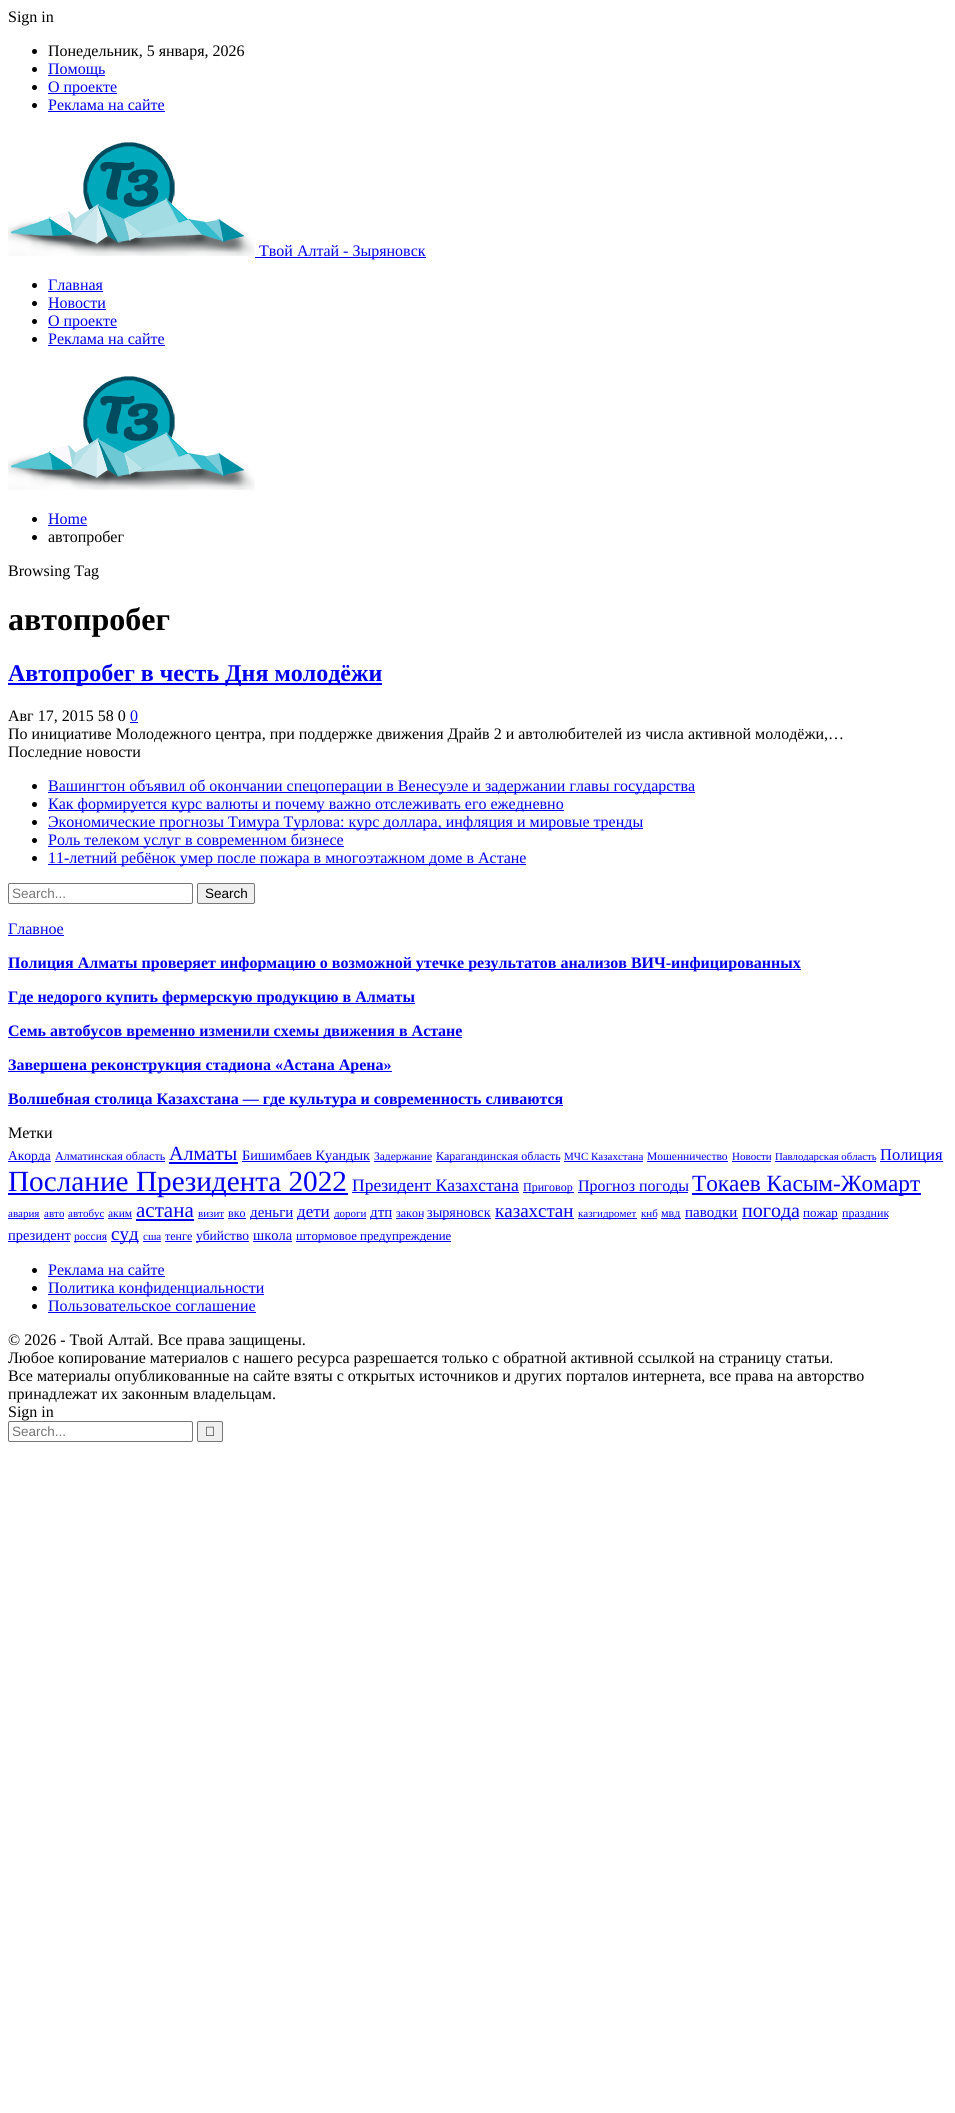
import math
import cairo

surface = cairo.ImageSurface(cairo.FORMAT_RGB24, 955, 2113)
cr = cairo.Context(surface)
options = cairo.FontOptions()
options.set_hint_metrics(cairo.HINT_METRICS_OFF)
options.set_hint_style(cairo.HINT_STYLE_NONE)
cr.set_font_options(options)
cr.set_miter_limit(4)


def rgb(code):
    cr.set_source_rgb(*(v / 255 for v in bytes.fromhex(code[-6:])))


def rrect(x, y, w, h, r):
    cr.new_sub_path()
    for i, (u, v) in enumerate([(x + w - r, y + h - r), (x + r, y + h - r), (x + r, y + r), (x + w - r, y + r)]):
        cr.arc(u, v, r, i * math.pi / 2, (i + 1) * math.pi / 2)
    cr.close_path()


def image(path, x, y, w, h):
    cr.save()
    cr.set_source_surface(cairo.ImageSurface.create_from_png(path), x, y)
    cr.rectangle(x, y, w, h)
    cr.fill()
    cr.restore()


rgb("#ffffff")
cr.paint()
rgb("#000000")
cr.arc(34.5, 51.5, 2.5, 0, 2 * math.pi)
cr.fill()
cr.arc(34.5, 69.5, 2.5, 0, 2 * math.pi)
cr.fill()
rgb("#0000ee")
cr.rectangle(48, 75, 57, 1)
cr.fill()
rgb("#000000")
cr.arc(34.5, 87.5, 2.5, 0, 2 * math.pi)
cr.fill()
rgb("#0000ee")
cr.rectangle(48, 93, 69, 1)
cr.fill()
rgb("#000000")
cr.arc(34.5, 105.5, 2.5, 0, 2 * math.pi)
cr.fill()
rgb("#0000ee")
cr.rectangle(48, 111, 117, 1)
cr.fill()
image("img/1.png", 8, 142, 247, 114)
cr.rectangle(255, 257, 171, 1)
cr.fill()
rgb("#000000")
cr.arc(34.5, 285.5, 2.5, 0, 2 * math.pi)
cr.fill()
rgb("#0000ee")
cr.rectangle(48, 291, 55, 1)
cr.fill()
rgb("#000000")
cr.arc(34.5, 303.5, 2.5, 0, 2 * math.pi)
cr.fill()
rgb("#0000ee")
cr.rectangle(48, 309, 58, 1)
cr.fill()
rgb("#000000")
cr.arc(34.5, 321.5, 2.5, 0, 2 * math.pi)
cr.fill()
rgb("#0000ee")
cr.rectangle(48, 327, 69, 1)
cr.fill()
rgb("#000000")
cr.arc(34.5, 339.5, 2.5, 0, 2 * math.pi)
cr.fill()
rgb("#0000ee")
cr.rectangle(48, 345, 117, 1)
cr.fill()
image("img/1.png", 8, 376, 247, 114)
rgb("#000000")
cr.arc(34.5, 519.5, 2.5, 0, 2 * math.pi)
cr.fill()
rgb("#0000ee")
cr.rectangle(48, 525, 39, 1)
cr.fill()
rgb("#000000")
cr.arc(34.5, 537.5, 2.5, 0, 2 * math.pi)
cr.fill()
rgb("#0000ee")
cr.rectangle(8, 683, 374, 2)
cr.fill()
cr.rectangle(130, 722, 8, 1)
cr.fill()
rgb("#000000")
cr.arc(34.5, 786.5, 2.5, 0, 2 * math.pi)
cr.fill()
rgb("#0000ee")
cr.rectangle(48, 792, 647, 1)
cr.fill()
rgb("#000000")
cr.arc(34.5, 804.5, 2.5, 0, 2 * math.pi)
cr.fill()
rgb("#0000ee")
cr.rectangle(48, 810, 516, 1)
cr.fill()
rgb("#000000")
cr.arc(34.5, 822.5, 2.5, 0, 2 * math.pi)
cr.fill()
rgb("#0000ee")
cr.rectangle(48, 828, 595, 1)
cr.fill()
rgb("#000000")
cr.arc(34.5, 840.5, 2.5, 0, 2 * math.pi)
cr.fill()
rgb("#0000ee")
cr.rectangle(48, 846, 296, 1)
cr.fill()
rgb("#000000")
cr.arc(34.5, 858.5, 2.5, 0, 2 * math.pi)
cr.fill()
rgb("#0000ee")
cr.rectangle(48, 864, 478, 1)
cr.fill()
rrect(8.5, 883.5, 184, 20, 1.5)
rgb("#767676")
cr.set_line_width(1)
cr.stroke()
rgb("#efefef")
rrect(197.5, 883.5, 57, 20, 1.5)
cr.fill_preserve()
rgb("#767676")
cr.stroke()
for x, y, w, h, color in [
    (8, 935, 56, 1, "#0000ee"),
    (8, 969, 793, 1, "#0000ee"),
    (8, 1003, 407, 1, "#0000ee"),
    (8, 1037, 454, 1, "#0000ee"),
    (8, 1071, 384, 1, "#0000ee"),
    (8, 1105, 555, 1, "#0000ee"),
    (8, 1161, 43, 1, "#0000ee"),
    (55, 1161, 110, 1, "#0000ee"),
    (169, 1162, 69, 2, "#0000ee"),
    (242, 1161, 128, 1, "#0000ee"),
    (374, 1161, 58, 1, "#0000ee"),
    (436, 1161, 124, 1, "#0000ee"),
    (564, 1161, 79, 1, "#0000ee"),
    (647, 1161, 81, 1, "#0000ee"),
    (732, 1161, 39, 1, "#0000ee"),
    (775, 1161, 101, 1, "#0000ee"),
    (880, 1161, 63, 1, "#0000ee"),
    (8, 1193, 340, 2, "#0000ee"),
    (352, 1192, 167, 1, "#0000ee"),
    (523, 1192, 51, 1, "#0000ee"),
    (578, 1192, 110, 1, "#0000ee"),
    (692, 1193, 229, 2, "#0000ee"),
    (8, 1218, 32, 1, "#0000ee"),
    (44, 1218, 20, 1, "#0000ee"),
    (68, 1218, 36, 1, "#0000ee"),
    (108, 1218, 24, 1, "#0000ee"),
    (136, 1219, 58, 2, "#0000ee"),
    (198, 1218, 26, 1, "#0000ee"),
    (228, 1218, 18, 1, "#0000ee"),
    (250, 1218, 43, 1, "#0000ee"),
    (297, 1218, 33, 1, "#0000ee"),
    (334, 1218, 32, 1, "#0000ee"),
    (370, 1218, 22, 1, "#0000ee"),
    (396, 1218, 27, 1, "#0000ee"),
    (427, 1218, 64, 1, "#0000ee"),
    (495, 1218, 79, 1, "#0000ee"),
    (578, 1218, 59, 1, "#0000ee"),
    (641, 1218, 16, 1, "#0000ee"),
    (661, 1218, 20, 1, "#0000ee"),
    (685, 1218, 53, 1, "#0000ee"),
    (742, 1218, 57, 1, "#0000ee"),
    (803, 1218, 35, 1, "#0000ee"),
    (842, 1218, 46, 1, "#0000ee"),
    (8, 1241, 62, 1, "#0000ee"),
    (74, 1241, 33, 1, "#0000ee"),
    (111, 1241, 28, 1, "#0000ee"),
    (143, 1241, 18, 1, "#0000ee"),
    (165, 1241, 27, 1, "#0000ee"),
    (196, 1241, 53, 1, "#0000ee"),
    (253, 1241, 39, 1, "#0000ee"),
    (296, 1241, 155, 1, "#0000ee"),
]:
    rgb(color)
    cr.rectangle(x, y, w, h)
    cr.fill()
rgb("#000000")
cr.arc(34.5, 1270.5, 2.5, 0, 2 * math.pi)
cr.fill()
rgb("#0000ee")
cr.rectangle(48, 1276, 117, 1)
cr.fill()
rgb("#000000")
cr.arc(34.5, 1288.5, 2.5, 0, 2 * math.pi)
cr.fill()
rgb("#0000ee")
cr.rectangle(48, 1294, 216, 1)
cr.fill()
rgb("#000000")
cr.arc(34.5, 1306.5, 2.5, 0, 2 * math.pi)
cr.fill()
rgb("#0000ee")
cr.rectangle(48, 1312, 208, 1)
cr.fill()
rrect(8.5, 1421.5, 184, 20, 1.5)
rgb("#767676")
cr.stroke()
rgb("#efefef")
rrect(197.5, 1421.5, 25, 20, 1.5)
cr.fill_preserve()
rgb("#767676")
cr.stroke()
image("img/2.png", 206, 1426, 8, 10)
cr.select_font_face("Liberation Serif")
cr.set_font_size(16)
rgb("#000000")
cr.move_to(8, 22)
cr.show_text("Sign in")
cr.move_to(48, 56)
cr.show_text("Понедельник, 5 января, 2026")
rgb("#0000ee")
for x, y, s in [
    (48, 74, "Помощь"),
    (48, 92, "О проекте"),
    (48, 110, "Реклама на сайте"),
    (259, 256, "Твой Алтай - Зыряновск"),
    (48, 290, "Главная"),
    (48, 308, "Новости"),
    (48, 326, "О проекте"),
    (48, 344, "Реклама на сайте"),
    (48, 524, "Home"),
]:
    cr.move_to(x, y)
    cr.show_text(s)
rgb("#000000")
cr.move_to(48, 542)
cr.show_text("автопробег")
cr.move_to(8, 576)
cr.show_text("Browsing Tag")
cr.select_font_face("Liberation Serif", cairo.FONT_SLANT_NORMAL, cairo.FONT_WEIGHT_BOLD)
cr.set_font_size(32)
cr.move_to(8, 630)
cr.show_text("автопробег")
cr.set_font_size(24)
rgb("#0000ee")
cr.move_to(8, 681)
cr.show_text("Автопробег в честь Дня молодёжи")
cr.select_font_face("Liberation Serif")
cr.set_font_size(16)
rgb("#000000")
cr.move_to(8, 721)
cr.show_text("Авг 17, 2015 58 0")
rgb("#0000ee")
cr.move_to(130, 721)
cr.show_text("0")
rgb("#000000")
cr.move_to(8, 739)
cr.show_text("По инициативе Молодежного центра, при поддержке движения Драйв 2 и автолюбителей из числа активной молодёжи,…")
cr.move_to(8, 757)
cr.show_text("Последние новости")
rgb("#0000ee")
for x, y, s in [
    (48, 791, "Вашингтон объявил об окончании спецоперации в Венесуэле и задержании главы государства"),
    (48, 809, "Как формируется курс валюты и почему важно отслеживать его ежедневно"),
    (48, 827, "Экономические прогнозы Тимура Турлова: курс доллара, инфляция и мировые тренды"),
    (48, 845, "Роль телеком услуг в современном бизнесе"),
    (48, 863, "11-летний ребёнок умер после пожара в многоэтажном доме в Астане"),
]:
    cr.move_to(x, y)
    cr.show_text(s)
cr.select_font_face("Liberation Sans")
cr.set_font_size(13.5)
rgb("#757575")
cr.move_to(12, 898)
cr.show_text("Search...")
rgb("#000000")
cr.move_to(205, 898)
cr.show_text("Search")
cr.select_font_face("Liberation Serif")
cr.set_font_size(16)
rgb("#0000ee")
cr.move_to(8, 934)
cr.show_text("Главное")
cr.select_font_face("Liberation Serif", cairo.FONT_SLANT_NORMAL, cairo.FONT_WEIGHT_BOLD)
for x, y, s in [
    (8, 968, "Полиция Алматы проверяет информацию о возможной утечке результатов анализов ВИЧ-инфицированных"),
    (8, 1002, "Где недорого купить фермерскую продукцию в Алматы"),
    (8, 1036, "Семь автобусов временно изменили схемы движения в Астане"),
    (8, 1070, "Завершена реконструкция стадиона «Астана Арена»"),
    (8, 1104, "Волшебная столица Казахстана — где культура и современность сливаются"),
]:
    cr.move_to(x, y)
    cr.show_text(s)
cr.select_font_face("Liberation Serif")
rgb("#000000")
cr.move_to(8, 1138)
cr.show_text("Метки")
cr.set_font_size(13.5)
rgb("#0000ee")
cr.move_to(8, 1160)
cr.show_text("Акорда")
cr.set_font_size(12)
cr.move_to(55, 1160)
cr.show_text("Алматинская область")
cr.set_font_size(20)
cr.move_to(169, 1160)
cr.show_text("Алматы")
cr.set_font_size(14.25)
cr.move_to(242, 1160)
cr.show_text("Бишимбаев Куандык")
cr.set_font_size(11.5)
cr.move_to(374, 1160)
cr.show_text("Задержание")
cr.set_font_size(12)
cr.move_to(436, 1160)
cr.show_text("Карагандинская область")
cr.set_font_size(11)
cr.move_to(564, 1160)
cr.show_text("МЧС Казахстана")
cr.set_font_size(11.5)
cr.move_to(647, 1160)
cr.show_text("Мошенничество")
cr.set_font_size(11)
cr.move_to(732, 1160)
cr.show_text("Новости")
cr.set_font_size(10.75)
cr.move_to(775, 1160)
cr.show_text("Павлодарская область")
cr.set_font_size(16.5)
cr.move_to(880, 1160)
cr.show_text("Полиция")
cr.set_font_size(29.25)
cr.move_to(8, 1191)
cr.show_text("Послание Президента 2022")
cr.set_font_size(17.5)
cr.move_to(352, 1191)
cr.show_text("Президент Казахстана")
cr.set_font_size(12)
cr.move_to(523, 1191)
cr.show_text("Приговор")
cr.set_font_size(16)
cr.move_to(578, 1191)
cr.show_text("Прогноз погоды")
cr.set_font_size(23.25)
cr.move_to(692, 1191)
cr.show_text("Токаев Касым-Жомарт")
cr.set_font_size(11)
for x, y, s in [
    (8, 1217, "авария"),
    (44, 1217, "авто"),
    (68, 1217, "автобус"),
]:
    cr.move_to(x, y)
    cr.show_text(s)
cr.set_font_size(11.5)
cr.move_to(108, 1217)
cr.show_text("аким")
cr.set_font_size(21)
cr.move_to(136, 1217)
cr.show_text("астана")
cr.set_font_size(11)
cr.move_to(198, 1217)
cr.show_text("визит")
cr.set_font_size(12)
cr.move_to(228, 1217)
cr.show_text("вко")
cr.set_font_size(15)
cr.move_to(250, 1217)
cr.show_text("деньги")
cr.set_font_size(17)
cr.move_to(297, 1217)
cr.show_text("дети")
cr.set_font_size(11)
cr.move_to(334, 1217)
cr.show_text("дороги")
cr.set_font_size(15)
cr.move_to(370, 1217)
cr.show_text("дтп")
cr.set_font_size(12)
cr.move_to(396, 1217)
cr.show_text("закон")
cr.set_font_size(14.25)
cr.move_to(427, 1217)
cr.show_text("зыряновск")
cr.set_font_size(19)
cr.move_to(495, 1217)
cr.show_text("казахстан")
cr.set_font_size(11)
cr.move_to(578, 1217)
cr.show_text("казгидромет")
cr.move_to(641, 1217)
cr.show_text("кнб")
cr.set_font_size(12)
cr.move_to(661, 1217)
cr.show_text("мвд")
cr.set_font_size(15)
cr.move_to(685, 1217)
cr.show_text("паводки")
cr.set_font_size(20)
cr.move_to(742, 1217)
cr.show_text("погода")
cr.set_font_size(13)
cr.move_to(803, 1217)
cr.show_text("пожар")
cr.set_font_size(12)
cr.move_to(842, 1217)
cr.show_text("праздник")
cr.set_font_size(14.5)
cr.move_to(8, 1240)
cr.show_text("президент")
cr.set_font_size(11.5)
cr.move_to(74, 1240)
cr.show_text("россия")
cr.set_font_size(19)
cr.move_to(111, 1240)
cr.show_text("суд")
cr.set_font_size(11)
cr.move_to(143, 1240)
cr.show_text("сша")
cr.set_font_size(12)
cr.move_to(165, 1240)
cr.show_text("тенге")
cr.set_font_size(13.5)
cr.move_to(196, 1240)
cr.show_text("убийство")
cr.set_font_size(14.5)
cr.move_to(253, 1240)
cr.show_text("школа")
cr.set_font_size(12.8)
cr.move_to(296, 1240)
cr.show_text("штормовое предупреждение")
cr.set_font_size(16)
for x, y, s in [
    (48, 1275, "Реклама на сайте"),
    (48, 1293, "Политика конфиденциальности"),
    (48, 1311, "Пользовательское соглашение"),
]:
    cr.move_to(x, y)
    cr.show_text(s)
rgb("#000000")
for x, y, s in [
    (8, 1345, "© 2026 - Твой Алтай. Все права защищены."),
    (8, 1363, "Любое копирование материалов с нашего ресурса разрешается только с обратной активной ссылкой на страницу статьи."),
    (8, 1381, "Все материалы опубликованные на сайте взяты с открытых источников и других порталов интернета, все права на авторство"),
    (8, 1399, "принадлежат их законным владельцам."),
    (8, 1417, "Sign in"),
]:
    cr.move_to(x, y)
    cr.show_text(s)
cr.select_font_face("Liberation Sans")
cr.set_font_size(13.5)
rgb("#757575")
cr.move_to(12, 1436)
cr.show_text("Search...")
surface.write_to_png("page.png")
